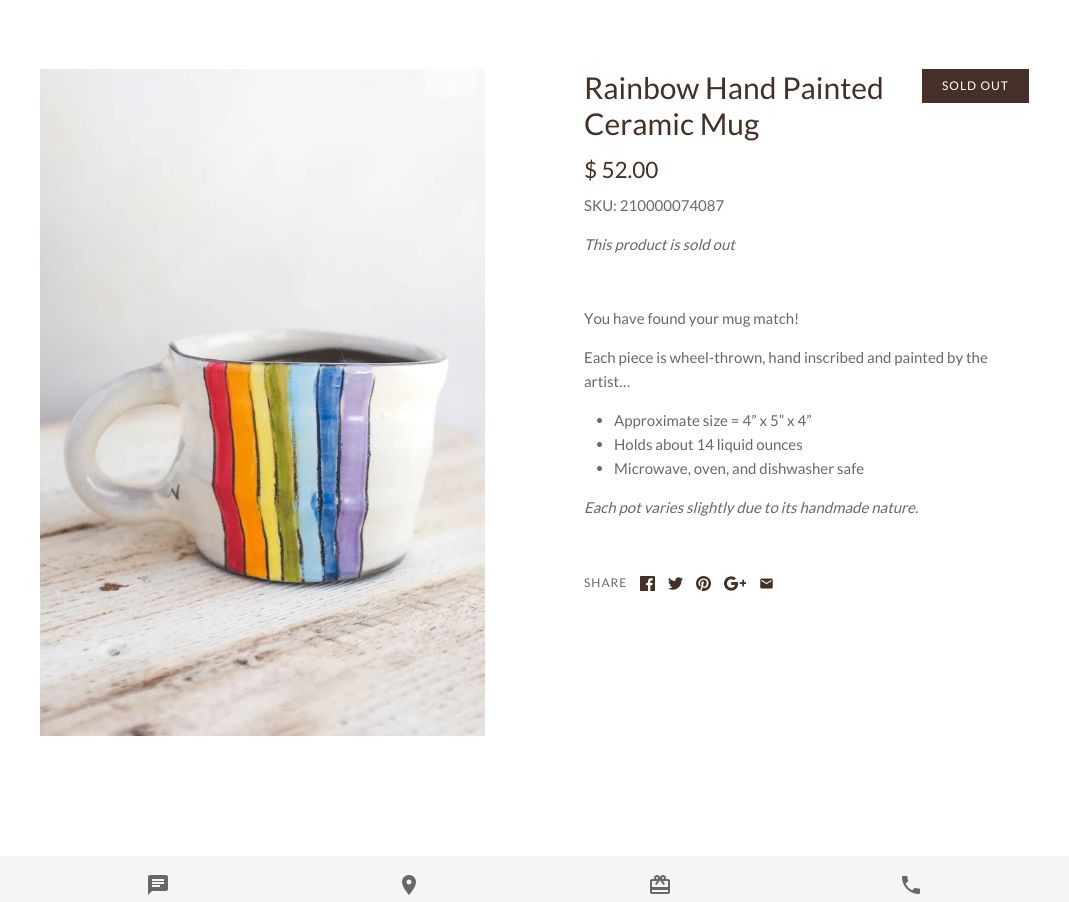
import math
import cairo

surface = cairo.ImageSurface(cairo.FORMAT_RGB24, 1069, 902)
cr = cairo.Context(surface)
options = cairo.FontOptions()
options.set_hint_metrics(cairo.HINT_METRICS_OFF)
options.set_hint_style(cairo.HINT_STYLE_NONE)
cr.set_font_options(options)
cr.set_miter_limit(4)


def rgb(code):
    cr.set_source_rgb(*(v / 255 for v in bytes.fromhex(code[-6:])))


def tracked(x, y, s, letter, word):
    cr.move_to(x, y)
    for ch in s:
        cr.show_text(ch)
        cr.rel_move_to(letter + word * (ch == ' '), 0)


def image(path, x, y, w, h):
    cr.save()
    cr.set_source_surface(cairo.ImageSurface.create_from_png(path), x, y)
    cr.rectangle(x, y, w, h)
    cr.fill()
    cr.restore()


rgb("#ffffff")
cr.paint()
image("img/1.png", 40, 69, 445, 667)
rgb("#443026")
cr.rectangle(922, 69, 107, 34)
cr.fill()
rgb("#696868")
cr.arc(599.5, 420.5, 2.5, 0, 2 * math.pi)
cr.fill()
cr.arc(599.5, 444.5, 2.5, 0, 2 * math.pi)
cr.fill()
cr.arc(599.5, 468.5, 2.5, 0, 2 * math.pi)
cr.fill()
image("img/2.png", 640, 576, 15, 15)
image("img/3.png", 668, 577, 15, 13)
image("img/4.png", 696, 576, 15, 15)
image("img/5.png", 724, 576, 22, 15)
image("img/6.png", 760, 578, 13, 11)
rgb("#f5f5f5")
cr.rectangle(0, 856, 1069, 46)
cr.fill()
image("img/7.png", 148, 875, 20, 20)
image("img/8.png", 402, 875, 14, 20)
image("img/9.png", 650, 875, 20, 19)
image("img/10.png", 902, 876, 18, 18)
cr.select_font_face("Lato")
cr.set_font_size(30)
rgb("#443026")
cr.move_to(584, 99)
cr.show_text("Rainbow Hand Painted")
cr.move_to(584, 135)
cr.show_text("Ceramic Mug")
cr.set_font_size(12)
rgb("#ffffff")
tracked(942, 90, "SOLD OUT", 1, 0)
cr.set_font_size(22.5)
rgb("#443026")
cr.move_to(584, 178)
cr.show_text("$ 52.00")
cr.set_font_size(15)
rgb("#696868")
cr.move_to(584, 211)
cr.show_text("SKU: 210000074087")
cr.select_font_face("Lato", cairo.FONT_SLANT_ITALIC)
cr.move_to(584, 250)
cr.show_text("This product is sold out")
cr.select_font_face("Lato")
for x, y, s in [
    (584, 324, "You have found your mug match!"),
    (584, 363, "Each piece is wheel-thrown, hand inscribed and painted by the"),
    (584, 387, "artist…"),
    (614, 426, "Approximate size = 4” x 5” x 4”"),
    (614, 450, "Holds about 14 liquid ounces"),
    (614, 474, "Microwave, oven, and dishwasher safe"),
]:
    cr.move_to(x, y)
    cr.show_text(s)
cr.select_font_face("Lato", cairo.FONT_SLANT_ITALIC)
cr.move_to(584, 513)
cr.show_text("Each pot varies slightly due to its handmade nature.")
cr.select_font_face("Lato")
cr.set_font_size(12)
tracked(584, 587, "SHARE", 1, 0)
surface.write_to_png("page.png")
